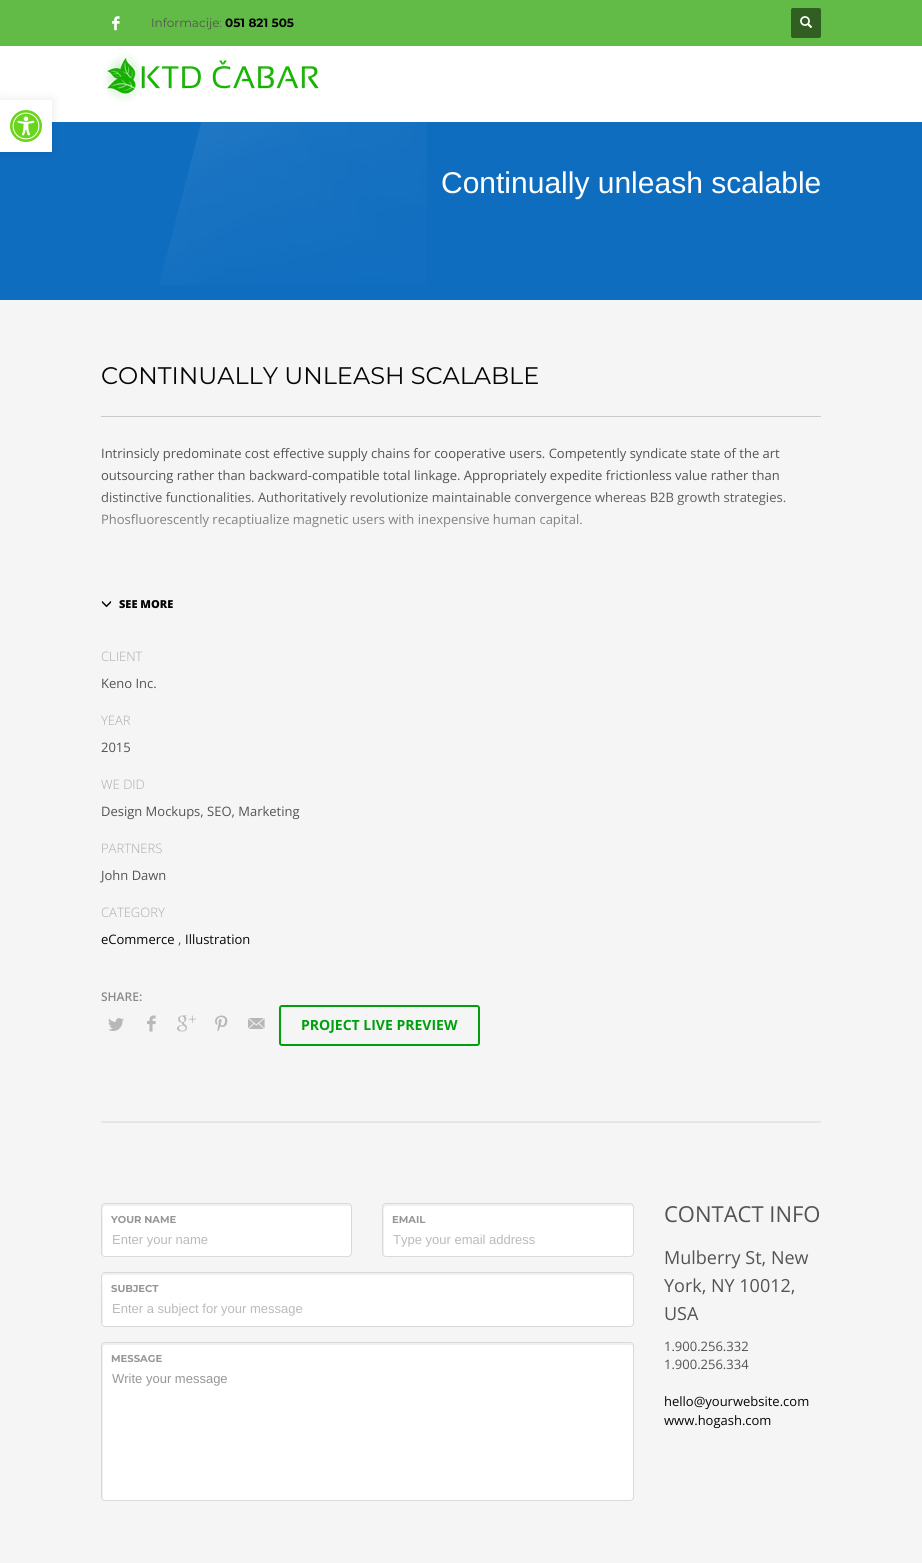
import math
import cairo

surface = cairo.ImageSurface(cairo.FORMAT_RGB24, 922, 1563)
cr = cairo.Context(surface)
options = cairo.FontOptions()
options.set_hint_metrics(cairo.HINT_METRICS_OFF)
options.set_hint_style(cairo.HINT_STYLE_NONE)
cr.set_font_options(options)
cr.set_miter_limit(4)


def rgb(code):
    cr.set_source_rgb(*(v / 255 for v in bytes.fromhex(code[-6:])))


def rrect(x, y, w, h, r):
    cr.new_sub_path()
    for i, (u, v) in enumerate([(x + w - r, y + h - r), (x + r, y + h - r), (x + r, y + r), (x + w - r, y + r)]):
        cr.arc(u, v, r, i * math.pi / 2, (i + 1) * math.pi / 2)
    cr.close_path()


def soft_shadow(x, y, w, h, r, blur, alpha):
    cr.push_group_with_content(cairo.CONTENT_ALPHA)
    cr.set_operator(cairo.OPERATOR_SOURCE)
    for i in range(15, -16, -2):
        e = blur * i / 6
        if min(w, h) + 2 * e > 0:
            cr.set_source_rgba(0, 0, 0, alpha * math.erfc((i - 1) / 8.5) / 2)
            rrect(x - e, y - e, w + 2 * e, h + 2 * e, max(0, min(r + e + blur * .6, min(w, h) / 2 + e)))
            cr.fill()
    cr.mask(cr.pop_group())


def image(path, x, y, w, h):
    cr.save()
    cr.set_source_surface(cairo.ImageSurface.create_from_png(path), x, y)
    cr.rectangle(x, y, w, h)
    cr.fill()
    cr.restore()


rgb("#f5f5f5")
cr.paint()
rgb("#ffffff")
cr.rectangle(0, 46, 922, 76)
cr.fill()
rgb("#0f6dbf")
cr.rectangle(0, 122, 922, 178)
cr.fill()
rgb("#000000")
soft_shadow(0, 100, 52, 52, 0, 5, 0.1)
rgb("#ffffff")
cr.rectangle(0, 100, 52, 52)
cr.fill()
image("img/1.png", 10, 110, 32, 32)
rgb("#62bb46")
cr.rectangle(0, 0, 922, 46)
cr.fill()
image("img/2.png", 112, 16, 8, 15)
rgb("#315e23")
rrect(791, 8, 30, 30, 2)
cr.fill()
image("img/3.png", 800, 16, 12, 12)
image("img/4.png", 103, 53, 216, 49)
image("img/5.png", 160, 122, 267, 163)
rgb("#cbcbcb")
cr.rectangle(101, 416, 720, 1)
cr.fill()
image("img/6.png", 101, 601, 11, 7)
image("img/7.png", 108, 1018, 16, 13)
image("img/8.png", 147, 1015, 9, 17)
image("img/9.png", 177, 1015, 19, 17)
image("img/10.png", 215, 1015, 13, 17)
image("img/11.png", 248, 1018, 17, 11)
rrect(280, 1006, 199, 39, 2)
rgb("#00a00d")
cr.stroke()
rgb("#e5e5e5")
cr.rectangle(101, 1121, 720, 2)
cr.fill()
rgb("#ffffff")
rrect(101, 1203, 251, 54, 4)
cr.fill()
rgb("#f0f0f0")
cr.new_path()
cr.move_to(106, 1206)
cr.line_to(349, 1206)
cr.line_to(351, 1207)
cr.curve_to(351, 1205, 349, 1204, 348, 1204)
cr.line_to(105, 1204)
cr.curve_to(103, 1204, 102, 1205, 102, 1207)
cr.line_to(102, 1253)
cr.curve_to(102, 1254, 102, 1255, 103, 1255)
cr.line_to(103, 1217)
cr.curve_to(103, 1214, 101, 1206, 106, 1206)
cr.close_path()
cr.fill()
rrect(101.5, 1203.5, 250, 53, 3.5)
rgb("#d9d9d9")
cr.set_line_width(1)
cr.stroke()
rgb("#ffffff")
rrect(382, 1203, 252, 54, 4)
cr.fill()
rgb("#f0f0f0")
cr.new_path()
cr.move_to(387, 1206)
cr.line_to(631, 1206)
cr.line_to(633, 1207)
cr.curve_to(633, 1205, 631, 1204, 630, 1204)
cr.line_to(386, 1204)
cr.curve_to(384, 1204, 383, 1205, 383, 1207)
cr.line_to(383, 1253)
cr.curve_to(383, 1254, 383, 1255, 384, 1255)
cr.line_to(384, 1217)
cr.curve_to(384, 1214, 382, 1206, 387, 1206)
cr.close_path()
cr.fill()
rrect(382.5, 1203.5, 251, 53, 3.5)
rgb("#d9d9d9")
cr.stroke()
rgb("#ffffff")
rrect(101, 1272, 533, 55, 4)
cr.fill()
rgb("#f0f0f0")
cr.new_path()
cr.move_to(106, 1275)
cr.line_to(631, 1275)
cr.line_to(633, 1276)
cr.curve_to(633, 1274, 632, 1273, 631, 1273)
cr.line_to(104, 1273)
cr.line_to(103, 1274)
cr.curve_to(102, 1276, 102, 1319, 102, 1323)
cr.line_to(103, 1325)
cr.line_to(103, 1286)
cr.curve_to(103, 1284, 101, 1275, 106, 1275)
cr.close_path()
cr.fill()
rrect(101.5, 1272.5, 532, 54, 3.5)
rgb("#d9d9d9")
cr.stroke()
rgb("#ffffff")
rrect(101, 1342, 533, 159, 4)
cr.fill()
rgb("#f0f0f0")
cr.new_path()
cr.move_to(106, 1345)
cr.line_to(631, 1345)
cr.line_to(633, 1346)
cr.curve_to(633, 1344, 631, 1343, 630, 1343)
cr.line_to(105, 1343)
cr.curve_to(103, 1343, 102, 1344, 102, 1346)
cr.line_to(102, 1497)
cr.curve_to(102, 1498, 102, 1499, 103, 1499)
cr.line_to(103, 1348)
cr.curve_to(103, 1346, 104, 1345, 106, 1345)
cr.close_path()
cr.fill()
rrect(101.5, 1342.5, 532, 158, 3.5)
rgb("#d9d9d9")
cr.stroke()
cr.select_font_face("Montserrat")
cr.set_font_size(12)
rgb("#535353")
cr.move_to(151, 27)
cr.show_text("Informacije:")
cr.select_font_face("Montserrat", cairo.FONT_SLANT_NORMAL, cairo.FONT_WEIGHT_BOLD)
rgb("#050505")
cr.move_to(225, 27)
cr.show_text("051 821 505")
cr.select_font_face("Liberation Sans")
cr.set_font_size(30)
rgb("#ffffff")
cr.move_to(441, 193)
cr.show_text("Continually unleash scalable")
cr.select_font_face("Montserrat")
cr.set_font_size(24)
rgb("#050505")
cr.move_to(101, 384)
cr.show_text("CONTINUALLY UNLEASH SCALABLE")
cr.select_font_face("Open Sans")
cr.set_font_size(13)
rgb("#535353")
for x, y, s in [
    (101, 458, "Intrinsicly predominate cost effective supply chains for cooperative users. Competently syndicate state of the art"),
    (101, 480, "outsourcing rather than backward-compatible total linkage. Appropriately expedite frictionless value rather than"),
    (101, 502, "distinctive functionalities. Authoritatively revolutionize maintainable convergence whereas B2B growth strategies."),
    (101, 524, "Phosfluorescently recaptiualize magnetic users with inexpensive human capital."),
]:
    cr.move_to(x, y)
    cr.show_text(s)
gradient = cairo.LinearGradient(461, 492, 461, 592)
gradient.add_color_stop_rgba(0, 0.961, 0.961, 0.961, 0)
gradient.add_color_stop_rgba(1, 0.961, 0.961, 0.961, 1)
cr.set_source(gradient)
cr.rectangle(102, 494, 683, 34)
cr.fill()
cr.select_font_face("Open Sans ExtraBold")
cr.set_font_size(11)
rgb("#050505")
cr.move_to(119, 608)
cr.show_text("SEE MORE")
cr.select_font_face("Open Sans Light")
cr.set_font_size(13)
rgb("#ababab")
cr.move_to(101, 661)
cr.show_text("CLIENT")
cr.select_font_face("Open Sans")
rgb("#535353")
cr.move_to(101, 688)
cr.show_text("Keno Inc.")
cr.select_font_face("Open Sans Light")
rgb("#ababab")
cr.move_to(101, 725)
cr.show_text("YEAR")
cr.select_font_face("Open Sans")
rgb("#535353")
cr.move_to(101, 752)
cr.show_text("2015")
cr.select_font_face("Open Sans Light")
rgb("#ababab")
cr.move_to(101, 789)
cr.show_text("WE DID")
cr.select_font_face("Open Sans")
rgb("#535353")
cr.move_to(101, 816)
cr.show_text("Design Mockups, SEO, Marketing")
cr.select_font_face("Open Sans Light")
rgb("#ababab")
cr.move_to(101, 853)
cr.show_text("PARTNERS")
cr.select_font_face("Open Sans")
rgb("#535353")
cr.move_to(101, 880)
cr.show_text("John Dawn")
cr.select_font_face("Open Sans Light")
rgb("#ababab")
cr.move_to(101, 917)
cr.show_text("CATEGORY")
cr.select_font_face("Open Sans")
rgb("#050505")
cr.move_to(101, 944)
cr.show_text("eCommerce")
rgb("#535353")
cr.move_to(178, 944)
cr.show_text(",")
rgb("#050505")
cr.move_to(185, 944)
cr.show_text("Illustration")
cr.select_font_face("Open Sans SemiBold")
cr.set_font_size(12)
rgb("#8a8a8a")
cr.move_to(101, 1001)
cr.show_text("SHARE:")
cr.select_font_face("Open Sans", cairo.FONT_SLANT_NORMAL, cairo.FONT_WEIGHT_BOLD)
cr.set_font_size(14)
rgb("#00a00d")
cr.move_to(301, 1030)
cr.show_text("PROJECT LIVE PREVIEW")
cr.select_font_face("Montserrat", cairo.FONT_SLANT_NORMAL, cairo.FONT_WEIGHT_BOLD)
cr.set_font_size(10)
rgb("#969696")
cr.move_to(111, 1223)
cr.show_text("YOUR NAME")
cr.select_font_face("Liberation Sans")
cr.set_font_size(13)
rgb("#bababa")
cr.move_to(112, 1244)
cr.show_text("Enter your name")
cr.select_font_face("Montserrat", cairo.FONT_SLANT_NORMAL, cairo.FONT_WEIGHT_BOLD)
cr.set_font_size(10)
rgb("#969696")
cr.move_to(392, 1223)
cr.show_text("EMAIL")
cr.select_font_face("Liberation Sans")
cr.set_font_size(13)
rgb("#bababa")
cr.move_to(393, 1244)
cr.show_text("Type your email address")
cr.select_font_face("Montserrat", cairo.FONT_SLANT_NORMAL, cairo.FONT_WEIGHT_BOLD)
cr.set_font_size(10)
rgb("#969696")
cr.move_to(111, 1292)
cr.show_text("SUBJECT")
cr.select_font_face("Liberation Sans")
cr.set_font_size(13)
rgb("#bababa")
cr.move_to(112, 1313)
cr.show_text("Enter a subject for your message")
cr.select_font_face("Montserrat", cairo.FONT_SLANT_NORMAL, cairo.FONT_WEIGHT_BOLD)
cr.set_font_size(10)
rgb("#969696")
cr.move_to(111, 1362)
cr.show_text("MESSAGE")
cr.select_font_face("Liberation Sans")
cr.set_font_size(13)
cr.move_to(112, 1383)
cr.show_text("Write your message")
cr.select_font_face("Open Sans")
cr.set_font_size(22)
rgb("#535353")
cr.move_to(664, 1222)
cr.show_text("CONTACT INFO")
cr.set_font_size(18)
for x, y, s in [
    (664, 1264, "Mulberry St, New"),
    (664, 1292, "York, NY 10012,"),
    (664, 1320, "USA"),
]:
    cr.move_to(x, y)
    cr.show_text(s)
cr.set_font_size(13)
cr.move_to(664, 1351)
cr.show_text("1.900.256.332")
cr.move_to(664, 1369)
cr.show_text("1.900.256.334")
rgb("#050505")
cr.move_to(664, 1406)
cr.show_text("hello@yourwebsite.com")
cr.move_to(664, 1425)
cr.show_text("www.hogash.com")
surface.write_to_png("page.png")
